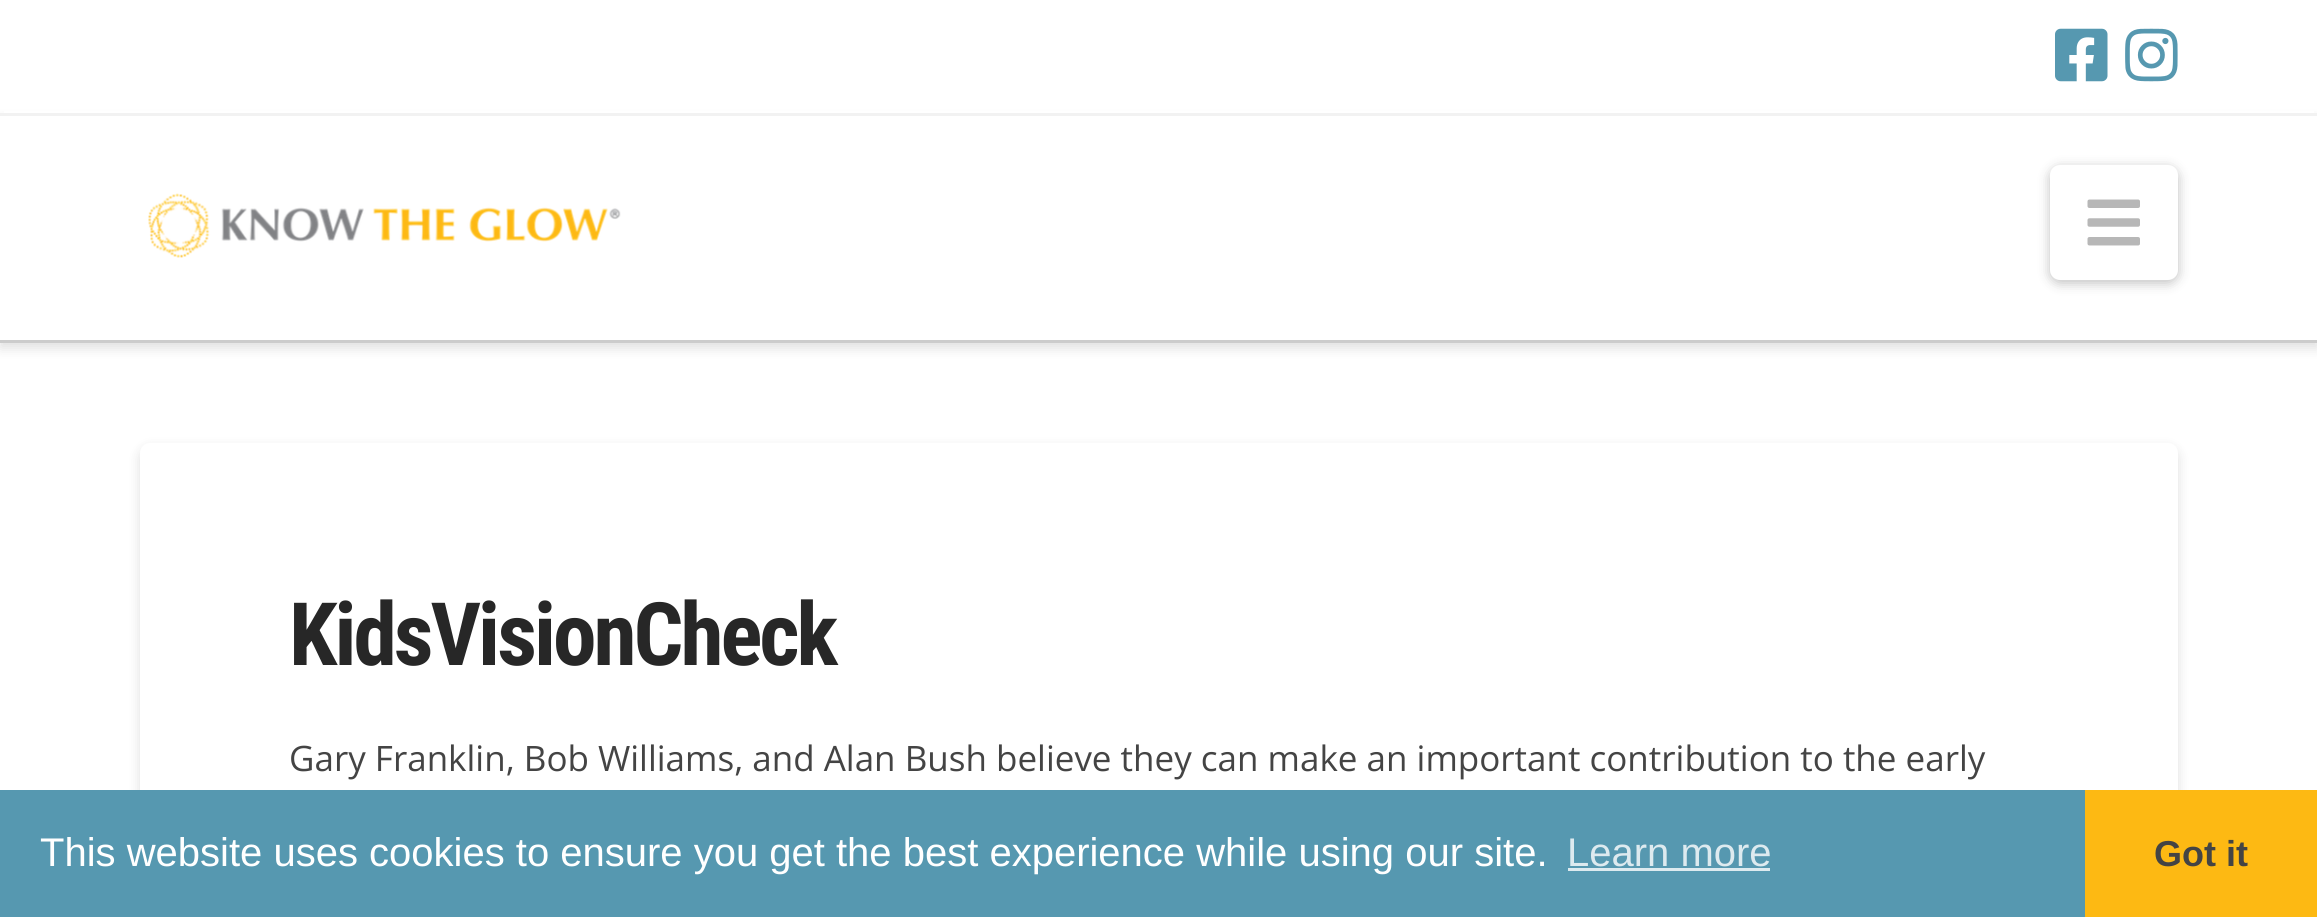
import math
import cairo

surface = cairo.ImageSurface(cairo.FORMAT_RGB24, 2317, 917)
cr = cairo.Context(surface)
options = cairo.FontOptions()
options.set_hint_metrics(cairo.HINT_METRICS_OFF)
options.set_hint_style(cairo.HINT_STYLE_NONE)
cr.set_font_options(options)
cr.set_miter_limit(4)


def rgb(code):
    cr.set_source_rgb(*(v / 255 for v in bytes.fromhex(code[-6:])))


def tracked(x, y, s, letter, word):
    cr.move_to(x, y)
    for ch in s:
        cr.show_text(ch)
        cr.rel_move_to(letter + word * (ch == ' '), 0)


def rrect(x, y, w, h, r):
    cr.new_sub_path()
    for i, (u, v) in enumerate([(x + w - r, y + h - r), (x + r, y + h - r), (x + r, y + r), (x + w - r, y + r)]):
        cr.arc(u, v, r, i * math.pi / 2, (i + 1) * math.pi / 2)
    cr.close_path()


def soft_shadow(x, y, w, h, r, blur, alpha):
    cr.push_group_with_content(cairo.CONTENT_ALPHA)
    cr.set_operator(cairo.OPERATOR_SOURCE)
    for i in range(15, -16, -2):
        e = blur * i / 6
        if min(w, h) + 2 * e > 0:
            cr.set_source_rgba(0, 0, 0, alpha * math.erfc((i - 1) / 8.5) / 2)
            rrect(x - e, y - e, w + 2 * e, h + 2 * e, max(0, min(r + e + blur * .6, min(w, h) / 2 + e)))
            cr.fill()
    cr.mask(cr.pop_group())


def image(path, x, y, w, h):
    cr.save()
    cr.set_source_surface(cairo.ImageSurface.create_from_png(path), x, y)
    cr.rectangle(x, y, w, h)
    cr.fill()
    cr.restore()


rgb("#ffffff")
cr.paint()
rgb("#000000")
soft_shadow(0, 120, 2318, 228, 0, 6, 0.13)
rgb("#ffffff")
cr.rectangle(4, 111, 2310, 2)
cr.fill()
rgb("#f2f2f2")
cr.rectangle(0, 113, 2317, 3)
cr.fill()
image("img/1.png", 2055, 28, 53, 54)
image("img/2.png", 2125, 28, 53, 54)
rgb("#ffffff")
cr.rectangle(0, 116, 2317, 224)
cr.fill()
rgb("#cccccc")
cr.rectangle(0, 340, 2317, 3)
cr.fill()
image("img/3.png", 148, 193, 473, 65)
rgb("#000000")
soft_shadow(2050, 168, 128, 115, 10, 6, 0.25)
rgb("#ffffff")
rrect(2050, 165, 128, 115, 10)
cr.fill()
image("img/4.png", 2087, 199, 53, 47)
rgb("#000000")
soft_shadow(140, 448, 2038, 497, 10, 6, 0.13)
rgb("#ffffff")
rrect(140, 443, 2038, 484, 10)
cr.fill()
for x, y, w, h, color in [
    (0, 790, 2085, 127, "#5698b0"),
    (1568, 868, 202, 3, "#ddeaef"),
    (2085, 790, 232, 127, "#fdb913"),
]:
    rgb(color)
    cr.rectangle(x, y, w, h)
    cr.fill()
cr.select_font_face("Roboto Condensed", cairo.FONT_SLANT_NORMAL, cairo.FONT_WEIGHT_BOLD)
cr.set_font_size(87.5)
rgb("#272727")
tracked(289, 665, "KidsVisionCheck", -3, 0)
cr.select_font_face("Open Sans")
cr.set_font_size(35)
rgb("#444444")
cr.move_to(289, 771)
cr.show_text("Gary Franklin, Bob Williams, and Alan Bush believe they can make an important contribution to the early")
cr.select_font_face("Liberation Sans")
cr.set_font_size(40)
rgb("#ffffff")
cr.move_to(40, 866)
cr.show_text("This website uses cookies to ensure you get the best experience while using our site.")
rgb("#ddeaef")
cr.move_to(1567, 866)
cr.show_text("Learn more")
cr.select_font_face("Liberation Sans", cairo.FONT_SLANT_NORMAL, cairo.FONT_WEIGHT_BOLD)
cr.set_font_size(36)
rgb("#444444")
cr.move_to(2154, 866)
cr.show_text("Got it")
surface.write_to_png("page.png")
